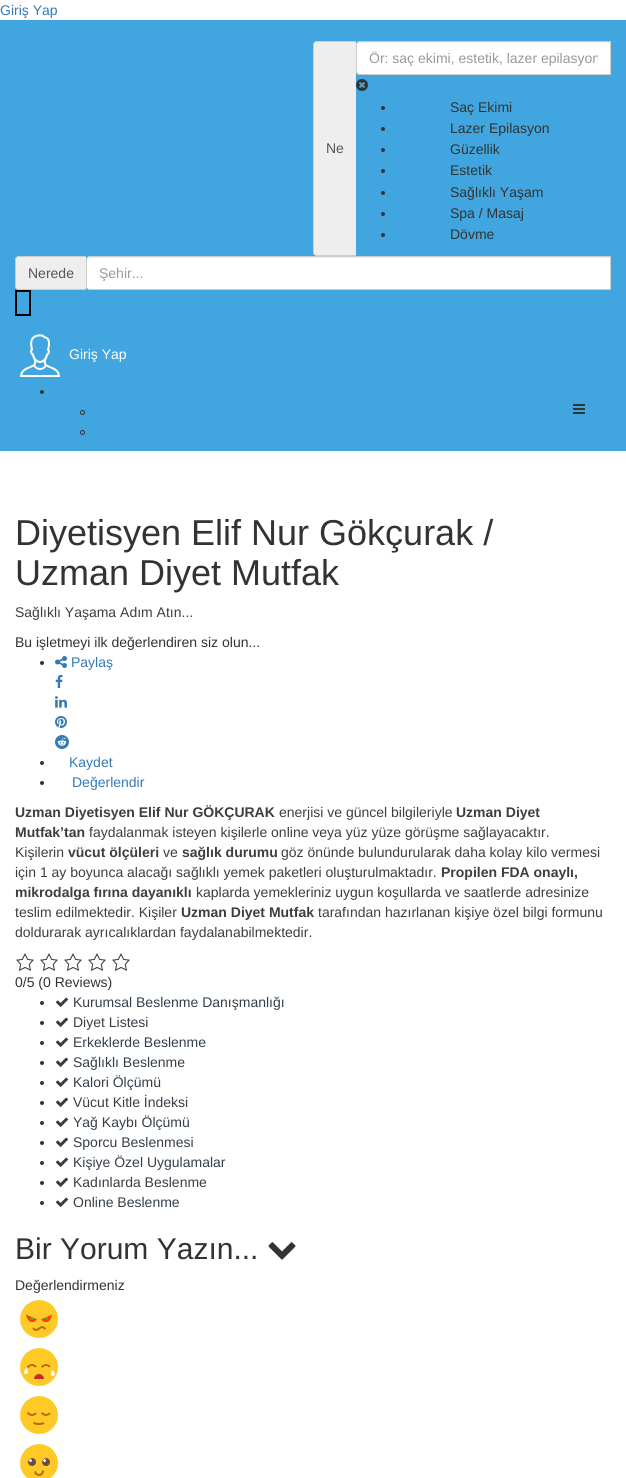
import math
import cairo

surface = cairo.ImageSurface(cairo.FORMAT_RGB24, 626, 1478)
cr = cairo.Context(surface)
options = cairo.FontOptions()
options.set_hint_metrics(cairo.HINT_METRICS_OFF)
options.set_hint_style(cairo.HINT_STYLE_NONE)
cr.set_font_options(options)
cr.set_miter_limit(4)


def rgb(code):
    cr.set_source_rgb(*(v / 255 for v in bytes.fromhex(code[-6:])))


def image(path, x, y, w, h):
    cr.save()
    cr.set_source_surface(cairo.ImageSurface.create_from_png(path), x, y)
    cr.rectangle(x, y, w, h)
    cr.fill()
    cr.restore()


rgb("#ffffff")
cr.paint()
rgb("#41a6df")
cr.rectangle(0, 20, 626, 431)
cr.fill()
rgb("#eeeeee")
cr.new_path()
cr.move_to(317, 41)
cr.line_to(356, 41)
cr.line_to(356, 256)
cr.line_to(317, 256)
cr.curve_to(315, 256, 313, 254, 313, 252)
cr.line_to(313, 45)
cr.curve_to(313, 43, 315, 41, 317, 41)
cr.close_path()
cr.fill()
rgb("#cccccc")
cr.set_fill_rule(cairo.FILL_RULE_EVEN_ODD)
cr.new_path()
cr.move_to(317, 41)
cr.line_to(356, 41)
cr.line_to(356, 256)
cr.line_to(317, 256)
cr.curve_to(315, 256, 313, 254, 313, 252)
cr.line_to(313, 45)
cr.curve_to(313, 43, 315, 41, 317, 41)
cr.close_path()
cr.move_to(317, 42)
cr.line_to(356, 42)
cr.line_to(356, 255)
cr.line_to(317, 255)
cr.curve_to(315, 255, 314, 254, 314, 252)
cr.line_to(314, 45)
cr.curve_to(314, 43, 315, 42, 317, 42)
cr.close_path()
cr.fill()
rgb("#ffffff")
cr.new_path()
cr.move_to(360, 41)
cr.line_to(611, 41)
cr.line_to(611, 75)
cr.line_to(360, 75)
cr.curve_to(358, 75, 356, 73, 356, 71)
cr.line_to(356, 45)
cr.curve_to(356, 43, 358, 41, 360, 41)
cr.close_path()
cr.fill()
rgb("#ececec")
cr.set_fill_rule(cairo.FILL_RULE_WINDING)
cr.new_path()
cr.move_to(360, 43)
cr.line_to(610, 43)
cr.line_to(610, 42)
cr.line_to(360, 42)
cr.curve_to(358, 42, 357, 44, 357, 46)
cr.curve_to(357, 44, 358, 43, 360, 43)
cr.close_path()
cr.fill()
cr.new_path()
cr.move_to(360, 41.5)
cr.line_to(610.5, 41.5)
cr.line_to(610.5, 74.5)
cr.line_to(360, 74.5)
cr.curve_to(358, 74.5, 356.5, 73, 356.5, 71)
cr.line_to(356.5, 45)
cr.curve_to(356.5, 43, 358, 41.5, 360, 41.5)
cr.close_path()
rgb("#cccccc")
cr.set_line_width(1)
cr.stroke()
image("img/1.png", 356, 79, 12, 12)
rgb("#333333")
cr.arc(383, 108, 2, 0, 2 * math.pi)
cr.fill()
cr.arc(383, 129, 2, 0, 2 * math.pi)
cr.fill()
cr.arc(383, 150, 2, 0, 2 * math.pi)
cr.fill()
cr.arc(383, 171, 2, 0, 2 * math.pi)
cr.fill()
cr.arc(383, 193, 2, 0, 2 * math.pi)
cr.fill()
cr.arc(383, 214, 2, 0, 2 * math.pi)
cr.fill()
cr.arc(383, 235, 2, 0, 2 * math.pi)
cr.fill()
rgb("#eeeeee")
cr.new_path()
cr.move_to(19, 256)
cr.line_to(86, 256)
cr.line_to(86, 290)
cr.line_to(19, 290)
cr.curve_to(17, 290, 15, 288, 15, 286)
cr.line_to(15, 260)
cr.curve_to(15, 258, 17, 256, 19, 256)
cr.close_path()
cr.fill()
rgb("#cccccc")
cr.set_fill_rule(cairo.FILL_RULE_EVEN_ODD)
cr.new_path()
cr.move_to(19, 256)
cr.line_to(86, 256)
cr.line_to(86, 290)
cr.line_to(19, 290)
cr.curve_to(17, 290, 15, 288, 15, 286)
cr.line_to(15, 260)
cr.curve_to(15, 258, 17, 256, 19, 256)
cr.close_path()
cr.move_to(19, 257)
cr.line_to(86, 257)
cr.line_to(86, 289)
cr.line_to(19, 289)
cr.curve_to(17, 289, 16, 288, 16, 286)
cr.line_to(16, 260)
cr.curve_to(16, 258, 17, 257, 19, 257)
cr.close_path()
cr.fill()
rgb("#ffffff")
cr.new_path()
cr.move_to(90, 256)
cr.line_to(611, 256)
cr.line_to(611, 290)
cr.line_to(90, 290)
cr.curve_to(88, 290, 86, 288, 86, 286)
cr.line_to(86, 260)
cr.curve_to(86, 258, 88, 256, 90, 256)
cr.close_path()
cr.fill()
rgb("#ececec")
cr.set_fill_rule(cairo.FILL_RULE_WINDING)
cr.new_path()
cr.move_to(90, 258)
cr.line_to(610, 258)
cr.line_to(610, 257)
cr.line_to(90, 257)
cr.curve_to(88, 257, 87, 259, 87, 261)
cr.curve_to(87, 259, 88, 258, 90, 258)
cr.close_path()
cr.fill()
cr.new_path()
cr.move_to(90, 256.5)
cr.line_to(610.5, 256.5)
cr.line_to(610.5, 289.5)
cr.line_to(90, 289.5)
cr.curve_to(88, 289.5, 86.5, 288, 86.5, 286)
cr.line_to(86.5, 260)
cr.curve_to(86.5, 258, 88, 256.5, 90, 256.5)
cr.close_path()
rgb("#cccccc")
cr.stroke()
cr.rectangle(16, 291, 14, 24)
rgb("#000000")
cr.set_line_width(2)
cr.stroke()
image("img/2.png", 19, 334, 42, 43)
rgb("#333333")
cr.arc(42, 392, 2, 0, 2 * math.pi)
cr.fill()
cr.arc(82.5, 412.5, 2, 0, 2 * math.pi)
cr.set_line_width(1)
cr.stroke()
cr.arc(82.5, 432.5, 2, 0, 2 * math.pi)
cr.stroke()
image("img/3.png", 573, 404, 12, 10)
cr.arc(42, 663, 2, 0, 2 * math.pi)
cr.fill()
image("img/4.png", 55, 656, 12, 12)
image("img/5.png", 55, 675, 8, 13)
image("img/6.png", 55, 696, 12, 12)
image("img/7.png", 55, 716, 12, 12)
image("img/8.png", 55, 735, 14, 14)
cr.arc(42, 763, 2, 0, 2 * math.pi)
cr.fill()
cr.arc(42, 783, 2, 0, 2 * math.pi)
cr.fill()
image("img/9.png", 16, 953, 18, 18)
image("img/9.png", 40, 953, 18, 18)
image("img/9.png", 64, 953, 18, 18)
image("img/9.png", 88, 953, 18, 18)
image("img/9.png", 112, 953, 18, 18)
cr.arc(42, 1003, 2, 0, 2 * math.pi)
cr.fill()
image("img/10.png", 56, 997, 12, 10)
cr.arc(42, 1023, 2, 0, 2 * math.pi)
cr.fill()
image("img/10.png", 56, 1017, 12, 10)
cr.arc(42, 1043, 2, 0, 2 * math.pi)
cr.fill()
image("img/10.png", 56, 1037, 12, 10)
cr.arc(42, 1063, 2, 0, 2 * math.pi)
cr.fill()
image("img/10.png", 56, 1057, 12, 10)
cr.arc(42, 1083, 2, 0, 2 * math.pi)
cr.fill()
image("img/10.png", 56, 1077, 12, 10)
cr.arc(42, 1103, 2, 0, 2 * math.pi)
cr.fill()
image("img/10.png", 56, 1097, 12, 10)
cr.arc(42, 1123, 2, 0, 2 * math.pi)
cr.fill()
image("img/10.png", 56, 1117, 12, 10)
cr.arc(42, 1143, 2, 0, 2 * math.pi)
cr.fill()
image("img/10.png", 56, 1137, 12, 10)
cr.arc(42, 1163, 2, 0, 2 * math.pi)
cr.fill()
image("img/10.png", 56, 1157, 12, 10)
cr.arc(42, 1183, 2, 0, 2 * math.pi)
cr.fill()
image("img/10.png", 56, 1177, 12, 10)
cr.arc(42, 1203, 2, 0, 2 * math.pi)
cr.fill()
image("img/10.png", 56, 1197, 12, 10)
image("img/11.png", 268, 1242, 28, 18)
image("img/12.png", 20, 1300, 38, 38)
image("img/13.png", 20, 1348, 38, 38)
image("img/14.png", 20, 1396, 38, 38)
image("img/15.png", 20, 1444, 38, 34)
cr.select_font_face("Liberation Sans")
cr.set_font_size(14)
rgb("#337ab7")
cr.move_to(0, 15)
cr.show_text("Giriş Yap")
rgb("#555555")
cr.move_to(326, 153)
cr.show_text("Ne")
cr.save()
cr.rectangle(369, 50, 229, 16)
cr.clip()
rgb("#999999")
cr.move_to(369, 63)
cr.show_text("Ör: saç ekimi, estetik, lazer epilasyon")
cr.restore()
rgb("#333333")
for x, y, s in [
    (450, 112, "Saç Ekimi"),
    (450, 133, "Lazer Epilasyon"),
    (450, 154, "Güzellik"),
    (450, 175, "Estetik"),
    (450, 197, "Sağlıklı Yaşam"),
    (450, 218, "Spa / Masaj"),
    (450, 239, "Dövme"),
]:
    cr.move_to(x, y)
    cr.show_text(s)
rgb("#555555")
cr.move_to(28, 278)
cr.show_text("Nerede")
rgb("#999999")
cr.move_to(99, 278)
cr.show_text("Şehir...")
rgb("#ffffff")
cr.move_to(69, 359)
cr.show_text("Giriş Yap")
cr.set_font_size(36)
rgb("#333333")
cr.move_to(15, 545)
cr.show_text("Diyetisyen Elif Nur Gökçurak /")
cr.move_to(15, 585)
cr.show_text("Uzman Diyet Mutfak")
cr.set_font_size(14)
rgb("#3e3e3e")
cr.move_to(15, 617)
cr.show_text("Sağlıklı Yaşama Adım Atın...")
rgb("#333333")
cr.move_to(15, 647)
cr.show_text("Bu işletmeyi ilk değerlendiren siz olun...")
rgb("#337ab7")
for x, y, s in [
    (71, 667, "Paylaş"),
    (69, 767, "Kaydet"),
    (72, 787, "Değerlendir"),
]:
    cr.move_to(x, y)
    cr.show_text(s)
cr.select_font_face("Liberation Sans", cairo.FONT_SLANT_NORMAL, cairo.FONT_WEIGHT_BOLD)
rgb("#3e3e3e")
cr.move_to(15, 817)
cr.show_text("Uzman Diyetisyen Elif Nur GÖKÇURAK")
cr.select_font_face("Liberation Sans")
cr.move_to(279, 817)
cr.show_text("enerjisi ve güncel bilgileriyle")
cr.select_font_face("Liberation Sans", cairo.FONT_SLANT_NORMAL, cairo.FONT_WEIGHT_BOLD)
cr.move_to(456, 817)
cr.show_text("Uzman Diyet")
cr.move_to(15, 837)
cr.show_text("Mutfak’tan")
cr.select_font_face("Liberation Sans")
cr.move_to(89, 837)
cr.show_text("faydalanmak isteyen kişilerle online veya yüz yüze görüşme sağlayacaktır.")
cr.move_to(15, 857)
cr.show_text("Kişilerin")
cr.select_font_face("Liberation Sans", cairo.FONT_SLANT_NORMAL, cairo.FONT_WEIGHT_BOLD)
cr.move_to(68, 857)
cr.show_text("vücut ölçüleri")
cr.select_font_face("Liberation Sans")
cr.move_to(163, 857)
cr.show_text("ve")
cr.select_font_face("Liberation Sans", cairo.FONT_SLANT_NORMAL, cairo.FONT_WEIGHT_BOLD)
cr.move_to(182, 857)
cr.show_text("sağlık durumu")
cr.select_font_face("Liberation Sans")
cr.move_to(281, 857)
cr.show_text("göz önünde bulundurularak daha kolay kilo vermesi")
cr.move_to(15, 877)
cr.show_text("için 1 ay boyunca alacağı sağlıklı yemek paketleri oluşturulmaktadır.")
cr.select_font_face("Liberation Sans", cairo.FONT_SLANT_NORMAL, cairo.FONT_WEIGHT_BOLD)
cr.move_to(441, 877)
cr.show_text("Propilen FDA onaylı,")
cr.move_to(15, 897)
cr.show_text("mikrodalga fırına dayanıklı")
cr.select_font_face("Liberation Sans")
cr.move_to(196, 897)
cr.show_text("kaplarda yemekleriniz uygun koşullarda ve saatlerde adresinize")
cr.move_to(15, 917)
cr.show_text("teslim edilmektedir. Kişiler")
cr.select_font_face("Liberation Sans", cairo.FONT_SLANT_NORMAL, cairo.FONT_WEIGHT_BOLD)
cr.move_to(181, 917)
cr.show_text("Uzman Diyet Mutfak")
cr.select_font_face("Liberation Sans")
cr.move_to(318, 917)
cr.show_text("tarafından hazırlanan kişiye özel bilgi formunu")
cr.move_to(15, 937)
cr.show_text("doldurarak ayrıcalıklardan faydalanabilmektedir.")
rgb("#333333")
cr.move_to(15, 987)
cr.show_text("0/5 (0 Reviews)")
rgb("#363f48")
for x, y, s in [
    (73, 1007, "Kurumsal Beslenme Danışmanlığı"),
    (73, 1027, "Diyet Listesi"),
    (73, 1047, "Erkeklerde Beslenme"),
    (73, 1067, "Sağlıklı Beslenme"),
    (73, 1087, "Kalori Ölçümü"),
    (73, 1107, "Vücut Kitle İndeksi"),
    (73, 1127, "Yağ Kaybı Ölçümü"),
    (73, 1147, "Sporcu Beslenmesi"),
    (73, 1167, "Kişiye Özel Uygulamalar"),
    (73, 1187, "Kadınlarda Beslenme"),
    (73, 1207, "Online Beslenme"),
]:
    cr.move_to(x, y)
    cr.show_text(s)
cr.set_font_size(30)
rgb("#333333")
cr.move_to(15, 1259)
cr.show_text("Bir Yorum Yazın...")
cr.set_font_size(14)
cr.move_to(15, 1290)
cr.show_text("Değerlendirmeniz")
surface.write_to_png("page.png")
